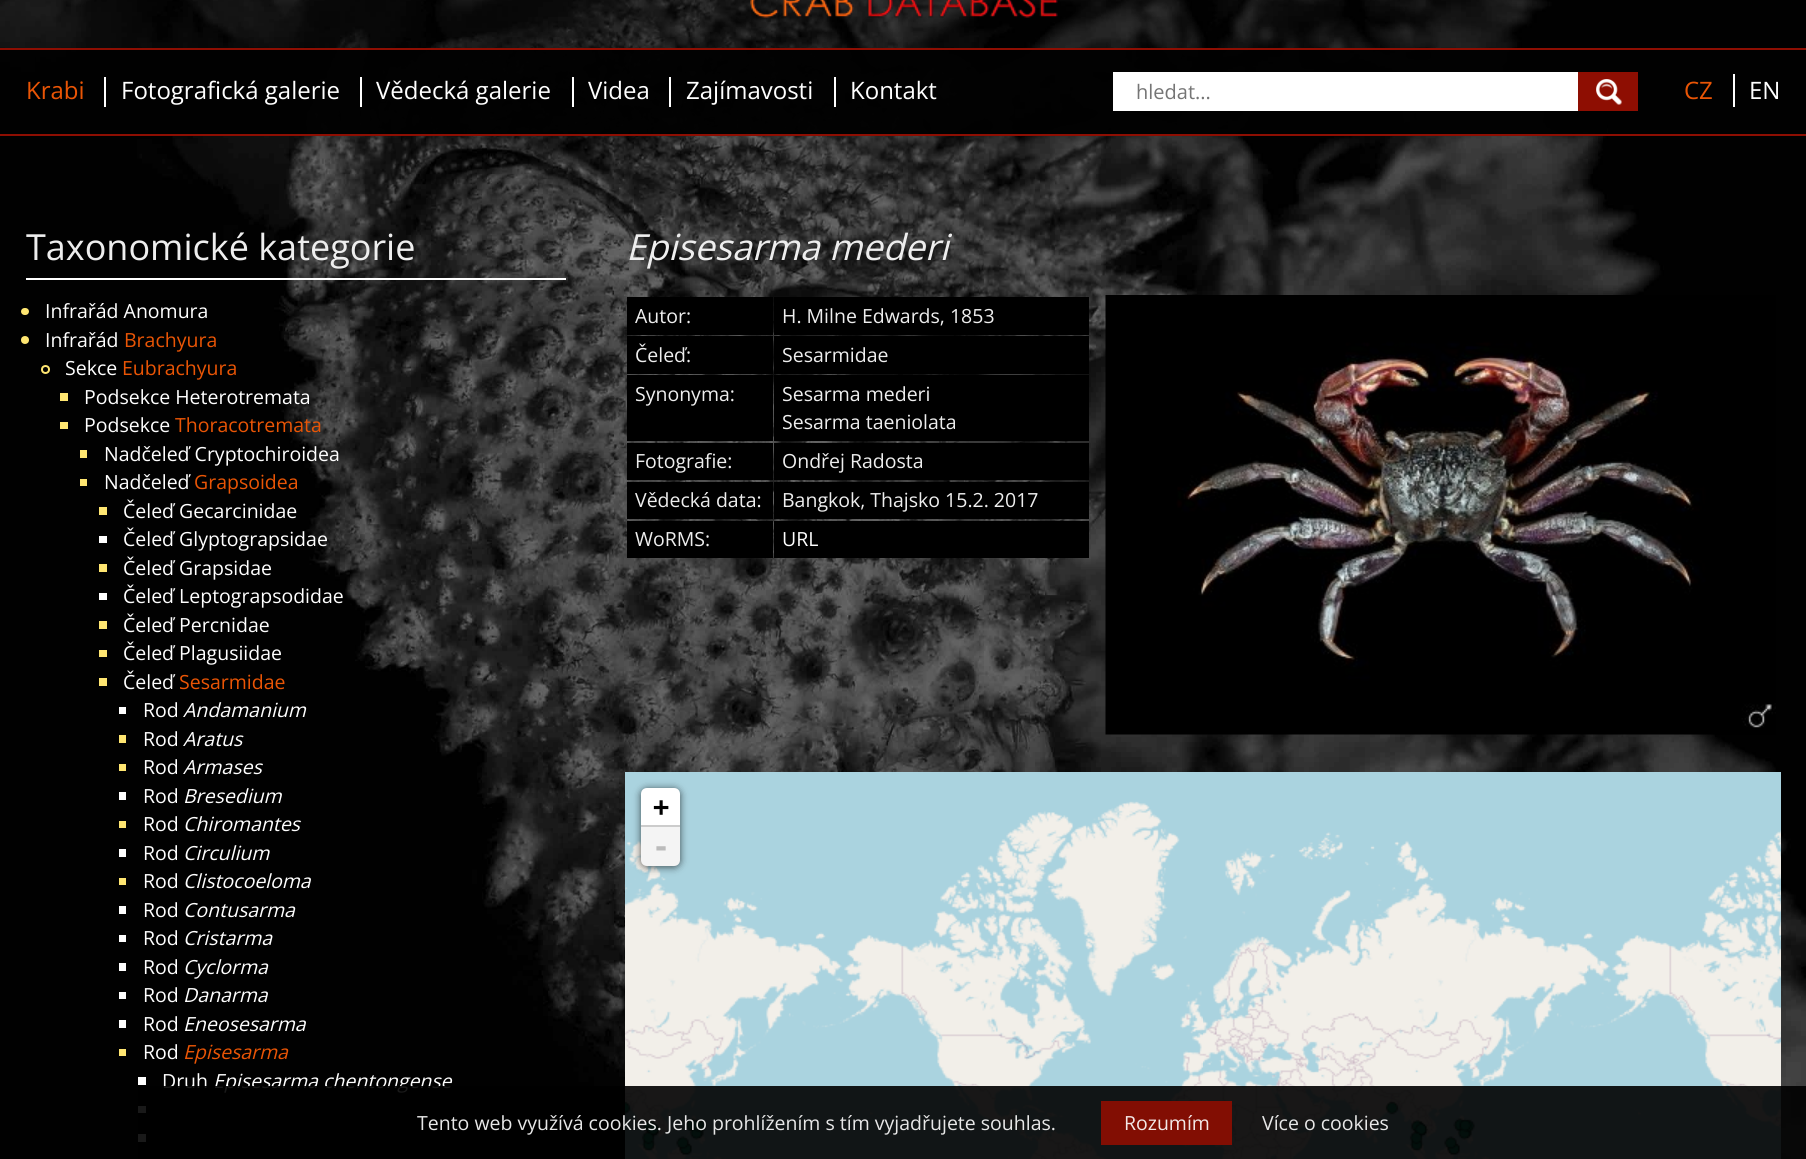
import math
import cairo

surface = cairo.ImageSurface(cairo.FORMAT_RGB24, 1806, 1159)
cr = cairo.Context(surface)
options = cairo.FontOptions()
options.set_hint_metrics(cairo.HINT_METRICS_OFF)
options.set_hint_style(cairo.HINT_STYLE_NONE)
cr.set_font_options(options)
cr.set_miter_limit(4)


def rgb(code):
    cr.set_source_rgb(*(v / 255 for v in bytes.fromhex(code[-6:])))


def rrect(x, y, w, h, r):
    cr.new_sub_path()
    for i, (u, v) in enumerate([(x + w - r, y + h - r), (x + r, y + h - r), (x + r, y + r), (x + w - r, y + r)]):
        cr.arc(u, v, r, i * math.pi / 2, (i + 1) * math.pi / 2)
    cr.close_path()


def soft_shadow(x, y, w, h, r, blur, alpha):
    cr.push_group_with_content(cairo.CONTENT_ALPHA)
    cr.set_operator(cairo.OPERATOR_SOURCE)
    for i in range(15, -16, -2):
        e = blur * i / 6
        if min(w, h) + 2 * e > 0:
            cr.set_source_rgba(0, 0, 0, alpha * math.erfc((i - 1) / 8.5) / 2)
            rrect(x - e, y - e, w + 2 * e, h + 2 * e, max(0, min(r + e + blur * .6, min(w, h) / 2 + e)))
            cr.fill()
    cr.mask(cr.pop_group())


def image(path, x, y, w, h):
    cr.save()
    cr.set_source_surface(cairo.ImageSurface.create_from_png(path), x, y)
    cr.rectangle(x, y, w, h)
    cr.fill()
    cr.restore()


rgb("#ffffff")
cr.paint()
image("img/1.png", 0, 0, 1806, 1159)
cr.set_source_rgba(0, 0, 0, 0.4)
cr.rectangle(0, 0, 1549, 48)
cr.fill()
rgb("#8e0e02")
cr.rectangle(0, 48, 1806, 2)
cr.fill()
image("img/2.png", 750, 0, 308, 18)
cr.set_source_rgba(0.004, 0.004, 0.004, 0.98)
cr.rectangle(0, 50, 1607, 84)
cr.fill()
rgb("#8e0e02")
cr.rectangle(0, 134, 1806, 2)
cr.fill()
rgb("#ffffff")
cr.rectangle(104, 77, 2, 30)
cr.rectangle(360, 77, 2, 30)
cr.rectangle(572, 77, 2, 30)
cr.rectangle(669, 77, 2, 30)
cr.rectangle(834, 77, 2, 30)
cr.rectangle(1113, 72, 465, 39)
cr.fill()
rgb("#8e0e02")
cr.rectangle(1578, 72, 60, 39)
cr.fill()
image("img/3.png", 1596, 79, 26, 26)
rgb("#ffffff")
cr.rectangle(1733, 74, 2, 33)
cr.fill()
cr.rectangle(26, 278, 540, 2)
cr.fill()
rgb("#ffe671")
rrect(21, 308, 8, 7, 3.5)
cr.fill()
cr.arc(25, 340, 4, 0, 2 * math.pi)
cr.fill()
cr.arc(45.5, 369.5, 3.5, 0, 2 * math.pi)
cr.stroke()
for x, y, w, h, color in [
    (60, 393, 8, 8, "#ffe671"),
    (60, 422, 8, 7, "#ffe671"),
    (80, 450, 7, 8, "#ffe671"),
    (80, 479, 7, 7, "#ffe671"),
    (99, 507, 8, 8, "#ffe671"),
    (99, 536, 8, 7, "#ffffff"),
    (99, 564, 8, 8, "#ffe671"),
    (99, 593, 8, 7, "#ffffff"),
    (99, 621, 8, 8, "#ffe671"),
    (99, 650, 8, 7, "#ffe671"),
    (99, 678, 8, 8, "#ffe671"),
    (119, 707, 7, 7, "#ffffff"),
    (119, 735, 7, 8, "#ffe671"),
    (119, 764, 7, 7, "#ffe671"),
    (119, 792, 7, 8, "#ffffff"),
    (119, 821, 7, 7, "#ffe671"),
    (119, 849, 7, 8, "#ffffff"),
    (119, 878, 7, 7, "#ffe671"),
    (119, 906, 7, 8, "#ffffff"),
    (119, 935, 7, 7, "#ffffff"),
    (119, 963, 7, 8, "#ffffff"),
    (119, 992, 7, 7, "#ffffff"),
    (119, 1020, 7, 8, "#ffffff"),
    (119, 1049, 7, 7, "#ffe671"),
    (138, 1077, 8, 8, "#ffffff"),
    (138, 1106, 8, 7, "#ffffff"),
    (138, 1134, 8, 8, "#ffffff"),
    (627, 297, 146, 38, "#000000"),
    (774, 297, 315, 38, "#000000"),
    (627, 336, 146, 38, "#000000"),
    (774, 336, 315, 38, "#000000"),
    (627, 375, 146, 66, "#000000"),
    (774, 375, 315, 66, "#000000"),
    (627, 443, 146, 37, "#000000"),
    (774, 443, 315, 37, "#000000"),
    (627, 482, 146, 37, "#000000"),
    (774, 482, 315, 37, "#000000"),
    (627, 521, 146, 37, "#000000"),
    (774, 521, 315, 37, "#000000"),
]:
    rgb(color)
    cr.rectangle(x, y, w, h)
    cr.fill()
image("img/4.png", 1105, 295, 671, 440)
image("img/5.png", 625, 772, 194, 384)
image("img/6.png", 819, 772, 384, 384)
image("img/7.png", 1203, 772, 384, 384)
image("img/8.png", 1587, 772, 194, 384)
image("img/9.png", 625, 1156, 194, 3)
image("img/10.png", 819, 1156, 384, 3)
image("img/11.png", 1203, 1156, 384, 3)
image("img/12.png", 1587, 1156, 194, 3)
image("img/13.png", 625, 1101, 82, 54)
image("img/14.png", 1385, 1101, 90, 54)
rgb("#000000")
soft_shadow(641, 789, 39, 78, 6, 4, 0.65)
rgb("#ffffff")
cr.new_path()
cr.move_to(647, 788)
cr.line_to(674, 788)
cr.curve_to(677.5, 788, 680, 790.5, 680, 794)
cr.line_to(680, 827)
cr.line_to(641, 827)
cr.line_to(641, 794)
cr.curve_to(641, 790.5, 643.5, 788, 647, 788)
cr.close_path()
cr.fill()
rgb("#cccccc")
cr.rectangle(641, 825, 39, 2)
cr.fill()
rgb("#f4f4f4")
cr.new_path()
cr.move_to(641, 827)
cr.line_to(680, 827)
cr.line_to(680, 860)
cr.curve_to(680, 863.5, 677.5, 866, 674, 866)
cr.line_to(647, 866)
cr.curve_to(643.5, 866, 641, 863.5, 641, 860)
cr.close_path()
cr.fill()
cr.select_font_face("Open Sans")
cr.set_font_size(24)
rgb("#ea5505")
cr.move_to(26, 99)
cr.show_text("Krabi")
rgb("#ffffff")
for x, y, s in [
    (121, 99, "Fotografická galerie"),
    (376, 99, "Vědecká galerie"),
    (588, 99, "Videa"),
    (686, 99, "Zajímavosti"),
    (850, 99, "Kontakt"),
]:
    cr.move_to(x, y)
    cr.show_text(s)
cr.set_font_size(20)
rgb("#757575")
cr.move_to(1136, 99)
cr.show_text("hledat...")
cr.set_font_size(24)
rgb("#ea5505")
cr.move_to(1684, 99)
cr.show_text("CZ")
rgb("#ffffff")
cr.move_to(1749, 99)
cr.show_text("EN")
cr.set_font_size(36)
rgb("#eeeeee")
cr.move_to(26, 260)
cr.show_text("Taxonomické kategorie")
cr.set_font_size(19.5)
rgb("#ffffff")
cr.move_to(45, 318)
cr.show_text("Infrařád Anomura")
cr.move_to(45, 347)
cr.show_text("Infrařád")
rgb("#ea5505")
cr.move_to(124, 347)
cr.show_text("Brachyura")
rgb("#ffffff")
cr.move_to(65, 375)
cr.show_text("Sekce")
rgb("#ea5505")
cr.move_to(122, 375)
cr.show_text("Eubrachyura")
rgb("#ffffff")
cr.move_to(84, 404)
cr.show_text("Podsekce Heterotremata")
cr.move_to(84, 432)
cr.show_text("Podsekce")
rgb("#ea5505")
cr.move_to(175, 432)
cr.show_text("Thoracotremata")
rgb("#ffffff")
cr.move_to(104, 461)
cr.show_text("Nadčeleď Cryptochiroidea")
cr.move_to(104, 489)
cr.show_text("Nadčeleď")
rgb("#ea5505")
cr.move_to(194, 489)
cr.show_text("Grapsoidea")
rgb("#ffffff")
for x, y, s in [
    (123, 518, "Čeleď Gecarcinidae"),
    (123, 546, "Čeleď Glyptograpsidae"),
    (123, 575, "Čeleď Grapsidae"),
    (123, 603, "Čeleď Leptograpsodidae"),
    (123, 632, "Čeleď Percnidae"),
    (123, 660, "Čeleď Plagusiidae"),
    (123, 689, "Čeleď"),
]:
    cr.move_to(x, y)
    cr.show_text(s)
rgb("#ea5505")
cr.move_to(179, 689)
cr.show_text("Sesarmidae")
rgb("#ffffff")
cr.move_to(143, 717)
cr.show_text("Rod")
cr.select_font_face("Open Sans", cairo.FONT_SLANT_ITALIC)
cr.move_to(183, 717)
cr.show_text("Andamanium")
cr.select_font_face("Open Sans")
cr.move_to(143, 746)
cr.show_text("Rod")
cr.select_font_face("Open Sans", cairo.FONT_SLANT_ITALIC)
cr.move_to(183, 746)
cr.show_text("Aratus")
cr.select_font_face("Open Sans")
cr.move_to(143, 774)
cr.show_text("Rod")
cr.select_font_face("Open Sans", cairo.FONT_SLANT_ITALIC)
cr.move_to(183, 774)
cr.show_text("Armases")
cr.select_font_face("Open Sans")
cr.move_to(143, 803)
cr.show_text("Rod")
cr.select_font_face("Open Sans", cairo.FONT_SLANT_ITALIC)
cr.move_to(183, 803)
cr.show_text("Bresedium")
cr.select_font_face("Open Sans")
cr.move_to(143, 831)
cr.show_text("Rod")
cr.select_font_face("Open Sans", cairo.FONT_SLANT_ITALIC)
cr.move_to(183, 831)
cr.show_text("Chiromantes")
cr.select_font_face("Open Sans")
cr.move_to(143, 860)
cr.show_text("Rod")
cr.select_font_face("Open Sans", cairo.FONT_SLANT_ITALIC)
cr.move_to(183, 860)
cr.show_text("Circulium")
cr.select_font_face("Open Sans")
cr.move_to(143, 888)
cr.show_text("Rod")
cr.select_font_face("Open Sans", cairo.FONT_SLANT_ITALIC)
cr.move_to(183, 888)
cr.show_text("Clistocoeloma")
cr.select_font_face("Open Sans")
cr.move_to(143, 917)
cr.show_text("Rod")
cr.select_font_face("Open Sans", cairo.FONT_SLANT_ITALIC)
cr.move_to(183, 917)
cr.show_text("Contusarma")
cr.select_font_face("Open Sans")
cr.move_to(143, 945)
cr.show_text("Rod")
cr.select_font_face("Open Sans", cairo.FONT_SLANT_ITALIC)
cr.move_to(183, 945)
cr.show_text("Cristarma")
cr.select_font_face("Open Sans")
cr.move_to(143, 974)
cr.show_text("Rod")
cr.select_font_face("Open Sans", cairo.FONT_SLANT_ITALIC)
cr.move_to(183, 974)
cr.show_text("Cyclorma")
cr.select_font_face("Open Sans")
cr.move_to(143, 1002)
cr.show_text("Rod")
cr.select_font_face("Open Sans", cairo.FONT_SLANT_ITALIC)
cr.move_to(183, 1002)
cr.show_text("Danarma")
cr.select_font_face("Open Sans")
cr.move_to(143, 1031)
cr.show_text("Rod")
cr.select_font_face("Open Sans", cairo.FONT_SLANT_ITALIC)
cr.move_to(183, 1031)
cr.show_text("Eneosesarma")
cr.select_font_face("Open Sans")
cr.move_to(143, 1059)
cr.show_text("Rod")
cr.select_font_face("Open Sans", cairo.FONT_SLANT_ITALIC)
rgb("#ea5505")
cr.move_to(183, 1059)
cr.show_text("Episesarma")
cr.select_font_face("Open Sans")
rgb("#ffffff")
cr.move_to(162, 1088)
cr.show_text("Druh")
cr.select_font_face("Open Sans", cairo.FONT_SLANT_ITALIC)
cr.move_to(213, 1088)
cr.show_text("Episesarma chentongense")
cr.set_font_size(36)
rgb("#eeeeee")
cr.move_to(626, 260)
cr.show_text("Episesarma mederi")
cr.select_font_face("Open Sans")
cr.set_font_size(19.5)
for x, y, s in [
    (635, 323, "Autor:"),
    (782, 323, "H. Milne Edwards, 1853"),
    (635, 362, "Čeleď:"),
    (782, 362, "Sesarmidae"),
    (635, 401, "Synonyma:"),
    (782, 401, "Sesarma mederi"),
    (782, 429, "Sesarma taeniolata"),
    (635, 468, "Fotografie:"),
    (782, 468, "Ondřej Radosta"),
    (635, 507, "Vědecká data:"),
    (782, 507, "Bangkok, Thajsko 15.2. 2017"),
    (635, 546, "WoRMS:"),
]:
    cr.move_to(x, y)
    cr.show_text(s)
rgb("#ffffff")
cr.move_to(782, 546)
cr.show_text("URL")
cr.select_font_face("DejaVu Sans Mono", cairo.FONT_SLANT_NORMAL, cairo.FONT_WEIGHT_BOLD)
cr.set_font_size(27)
rgb("#000000")
cr.move_to(653, 816)
cr.show_text("+")
cr.set_font_size(30)
rgb("#bbbbbb")
cr.move_to(652, 857)
cr.show_text("-")
cr.set_source_rgba(0, 0, 0, 0.9)
cr.rectangle(138, 1086, 1668, 73)
cr.fill()
cr.select_font_face("Open Sans")
cr.set_font_size(19.5)
rgb("#e7e7e7")
cr.move_to(417, 1130)
cr.show_text("Tento web využívá cookies. Jeho prohlížením s tím vyjadřujete souhlas.")
cr.set_source_rgba(0.557, 0.055, 0.008, 0.9)
cr.rectangle(1101, 1101, 131, 44)
cr.fill()
rgb("#f2e7e6")
cr.move_to(1124, 1130)
cr.show_text("Rozumím")
rgb("#e7e7e7")
cr.move_to(1262, 1130)
cr.show_text("Více o cookies")
surface.write_to_png("page.png")
